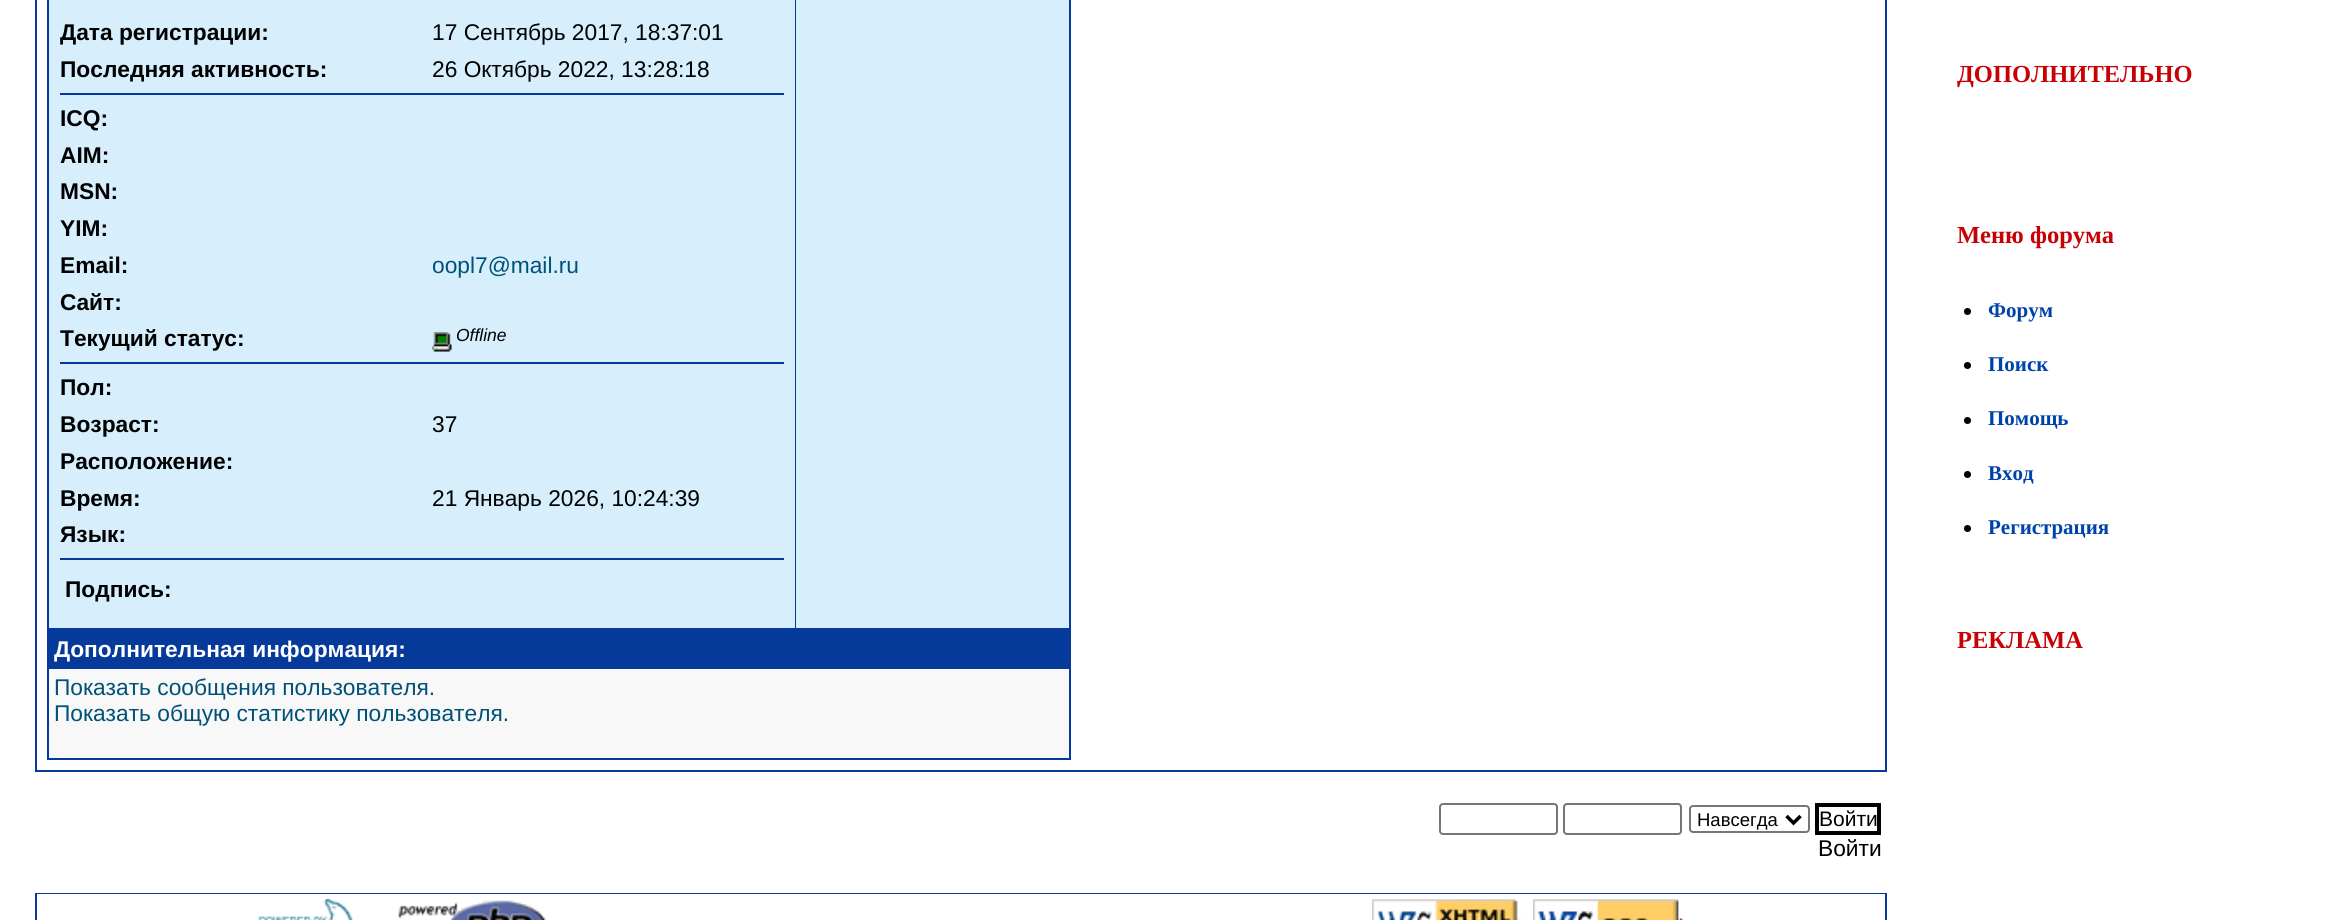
import math
import cairo

surface = cairo.ImageSurface(cairo.FORMAT_RGB24, 2331, 920)
cr = cairo.Context(surface)
options = cairo.FontOptions()
options.set_hint_metrics(cairo.HINT_METRICS_OFF)
options.set_hint_style(cairo.HINT_STYLE_NONE)
cr.set_font_options(options)
cr.set_miter_limit(4)


def rgb(code):
    cr.set_source_rgb(*(v / 255 for v in bytes.fromhex(code[-6:])))


def rrect(x, y, w, h, r):
    cr.new_sub_path()
    for i, (u, v) in enumerate([(x + w - r, y + h - r), (x + r, y + h - r), (x + r, y + r), (x + w - r, y + r)]):
        cr.arc(u, v, r, i * math.pi / 2, (i + 1) * math.pi / 2)
    cr.close_path()


def image(path, x, y, w, h):
    cr.save()
    cr.set_source_surface(cairo.ImageSurface.create_from_png(path), x, y)
    cr.rectangle(x, y, w, h)
    cr.fill()
    cr.restore()


rgb("#ffffff")
cr.paint()
cr.rectangle(36, -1, 1850, 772)
rgb("#063a9a")
cr.stroke()
for x, y, w, h, color in [
    (47, 0, 1024, 760, "#063a9a"),
    (49, 0, 746, 628, "#d7effd"),
    (60, 93, 724, 2, "#063a9a"),
]:
    rgb(color)
    cr.rectangle(x, y, w, h)
    cr.fill()
image("img/1.png", 432, 332, 20, 20)
for x, y, w, h, color in [
    (60, 362, 724, 2, "#063a9a"),
    (60, 558, 724, 2, "#063a9a"),
    (796, 0, 273, 628, "#d7effd"),
    (49, 669, 1020, 89, "#f8f8f8"),
]:
    rgb(color)
    cr.rectangle(x, y, w, h)
    cr.fill()
rrect(1440, 804, 117, 30, 3)
rgb("#767676")
cr.stroke()
rrect(1564, 804, 117, 30, 3)
cr.stroke()
rrect(1690, 806, 119, 26, 3)
cr.stroke()
cr.new_path()
cr.move_to(1786.5, 816)
cr.line_to(1793.5, 823)
cr.line_to(1800.5, 816)
rgb("#000000")
cr.set_line_width(3.5)
cr.stroke()
cr.rectangle(1817, 805, 62, 28)
cr.set_line_width(4)
cr.stroke()
cr.rectangle(36, 894, 1850, 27)
rgb("#063a9a")
cr.set_line_width(2)
cr.stroke()
rgb("#ffffff")
cr.rectangle(37, 894, 1848, 1)
cr.fill()
image("img/2.png", 258, 899, 96, 21)
image("img/3.png", 398, 900, 149, 20)
image("img/4.png", 1372, 899, 151, 21)
image("img/5.png", 1533, 899, 151, 21)
rgb("#000000")
cr.arc(1967.5, 311.5, 3.5, 0, 2 * math.pi)
cr.fill()
cr.arc(1967.5, 365.5, 3.5, 0, 2 * math.pi)
cr.fill()
cr.arc(1967.5, 420.5, 3.5, 0, 2 * math.pi)
cr.fill()
cr.arc(1967.5, 474.5, 3.5, 0, 2 * math.pi)
cr.fill()
cr.arc(1967.5, 528.5, 3.5, 0, 2 * math.pi)
cr.fill()
cr.select_font_face("Liberation Sans", cairo.FONT_SLANT_NORMAL, cairo.FONT_WEIGHT_BOLD)
cr.set_font_size(22.75)
cr.move_to(60, 40)
cr.show_text("Дата регистрации:")
cr.select_font_face("Liberation Sans")
cr.move_to(432, 40)
cr.show_text("17 Сентябрь 2017, 18:37:01")
cr.select_font_face("Liberation Sans", cairo.FONT_SLANT_NORMAL, cairo.FONT_WEIGHT_BOLD)
cr.move_to(60, 77)
cr.show_text("Последняя активность:")
cr.select_font_face("Liberation Sans")
cr.move_to(432, 77)
cr.show_text("26 Октябрь 2022, 13:28:18")
cr.select_font_face("Liberation Sans", cairo.FONT_SLANT_NORMAL, cairo.FONT_WEIGHT_BOLD)
for x, y, s in [
    (60, 126, "ICQ:"),
    (60, 163, "AIM:"),
    (60, 199, "MSN:"),
    (60, 236, "YIM:"),
    (60, 273, "Email:"),
]:
    cr.move_to(x, y)
    cr.show_text(s)
cr.select_font_face("Liberation Sans")
rgb("#005177")
cr.move_to(432, 273)
cr.show_text("oopl7@mail.ru")
cr.select_font_face("Liberation Sans", cairo.FONT_SLANT_NORMAL, cairo.FONT_WEIGHT_BOLD)
rgb("#000000")
cr.move_to(60, 310)
cr.show_text("Сайт:")
cr.move_to(60, 346)
cr.show_text("Текущий статус:")
cr.select_font_face("Liberation Sans", cairo.FONT_SLANT_ITALIC)
cr.set_font_size(17.5)
cr.move_to(456, 341)
cr.show_text("Offline")
cr.select_font_face("Liberation Sans", cairo.FONT_SLANT_NORMAL, cairo.FONT_WEIGHT_BOLD)
cr.set_font_size(22.75)
cr.move_to(60, 395)
cr.show_text("Пол:")
cr.move_to(60, 432)
cr.show_text("Возраст:")
cr.select_font_face("Liberation Sans")
cr.move_to(432, 432)
cr.show_text("37")
cr.select_font_face("Liberation Sans", cairo.FONT_SLANT_NORMAL, cairo.FONT_WEIGHT_BOLD)
cr.move_to(60, 469)
cr.show_text("Расположение:")
cr.move_to(60, 506)
cr.show_text("Время:")
cr.select_font_face("Liberation Sans")
cr.move_to(432, 506)
cr.show_text("21 Январь 2026, 10:24:39")
cr.select_font_face("Liberation Sans", cairo.FONT_SLANT_NORMAL, cairo.FONT_WEIGHT_BOLD)
cr.move_to(60, 542)
cr.show_text("Язык:")
cr.move_to(65, 597)
cr.show_text("Подпись:")
rgb("#ffffff")
cr.move_to(54, 657)
cr.show_text("Дополнительная информация:")
cr.select_font_face("Liberation Sans")
rgb("#005177")
cr.move_to(54, 695)
cr.show_text("Показать сообщения пользователя.")
cr.move_to(54, 721)
cr.show_text("Показать общую статистику пользователя.")
cr.set_font_size(18.5)
rgb("#000000")
cr.move_to(1697, 826)
cr.show_text("Навсегда")
cr.set_font_size(21)
cr.move_to(1819, 826)
cr.show_text("Войти")
cr.set_font_size(22.75)
cr.move_to(1818, 856)
cr.show_text("Войти")
cr.select_font_face("Liberation Serif", cairo.FONT_SLANT_NORMAL, cairo.FONT_WEIGHT_BOLD)
cr.set_font_size(24.5)
rgb("#c80104")
cr.move_to(1957, 82)
cr.show_text("ДОПОЛНИТЕЛЬНО")
cr.move_to(1957, 243)
cr.show_text("Меню форума")
cr.set_font_size(21)
rgb("#0042ab")
for x, y, s in [
    (1988, 317, "Форум"),
    (1988, 371, "Поиск"),
    (1988, 425, "Помощь"),
    (1988, 480, "Вход"),
    (1988, 534, "Регистрация"),
]:
    cr.move_to(x, y)
    cr.show_text(s)
cr.set_font_size(24.5)
rgb("#c80104")
cr.move_to(1957, 648)
cr.show_text("РЕКЛАМА")
surface.write_to_png("page.png")
